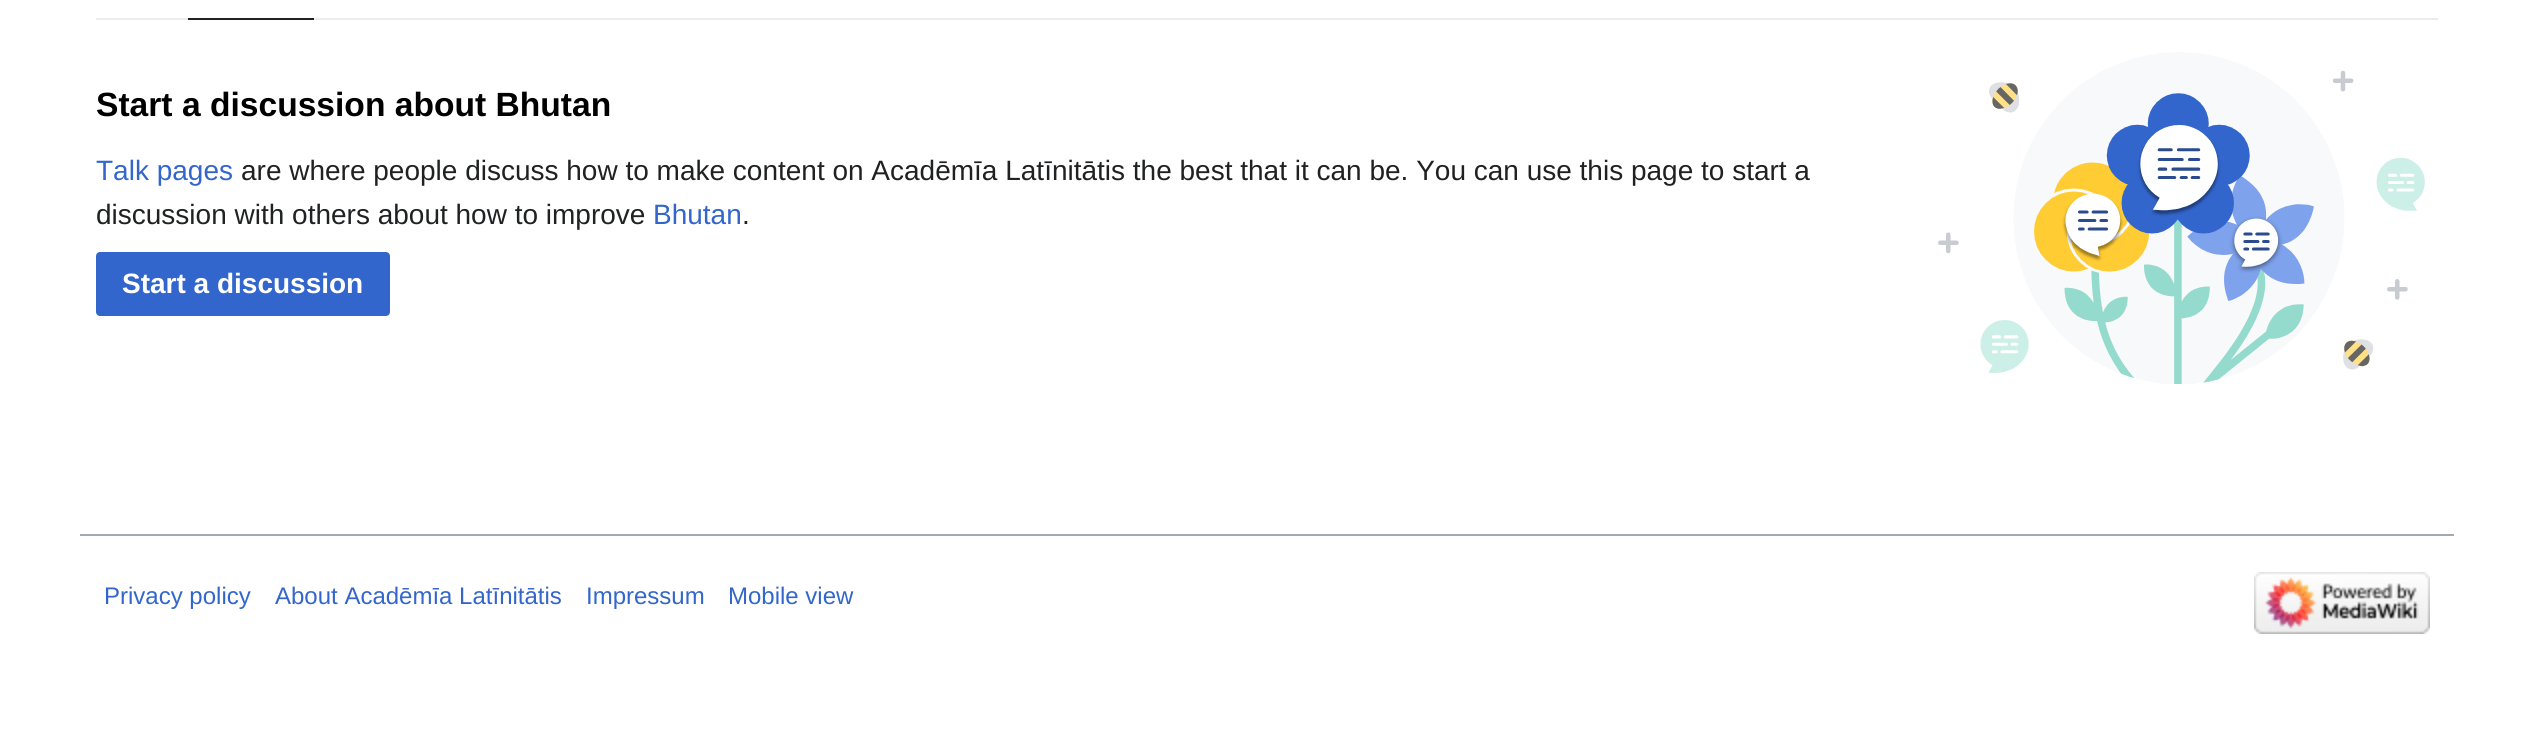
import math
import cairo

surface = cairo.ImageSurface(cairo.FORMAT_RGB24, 2533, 732)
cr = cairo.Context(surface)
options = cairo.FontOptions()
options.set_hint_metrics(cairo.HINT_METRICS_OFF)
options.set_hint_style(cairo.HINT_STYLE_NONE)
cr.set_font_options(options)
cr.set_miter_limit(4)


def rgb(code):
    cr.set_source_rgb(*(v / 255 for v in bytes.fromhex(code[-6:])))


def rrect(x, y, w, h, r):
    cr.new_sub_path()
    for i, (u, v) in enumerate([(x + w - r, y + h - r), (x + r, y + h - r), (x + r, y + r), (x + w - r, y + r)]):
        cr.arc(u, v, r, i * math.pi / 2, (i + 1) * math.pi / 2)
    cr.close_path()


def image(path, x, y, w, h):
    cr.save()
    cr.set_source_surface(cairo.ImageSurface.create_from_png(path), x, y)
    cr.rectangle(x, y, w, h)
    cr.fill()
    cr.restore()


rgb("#ffffff")
cr.paint()
rgb("#eaecf0")
cr.rectangle(96, 18, 2342, 2)
cr.fill()
rgb("#202122")
cr.rectangle(188, 18, 126, 2)
cr.fill()
rgb("#3366cc")
rrect(97, 253, 292, 62, 3)
cr.fill_preserve()
cr.stroke()
image("img/1.png", 1938, 52, 487, 332)
rgb("#a2a9b1")
cr.rectangle(80, 534, 2374, 2)
cr.fill()
image("img/2.png", 2254, 572, 176, 62)
cr.select_font_face("Liberation Sans", cairo.FONT_SLANT_NORMAL, cairo.FONT_WEIGHT_BOLD)
cr.set_font_size(33.6)
rgb("#000000")
cr.move_to(96, 116)
cr.show_text("Start a discussion about Bhutan")
cr.select_font_face("Liberation Sans")
cr.set_font_size(28)
rgb("#3366cc")
cr.move_to(96, 180)
cr.show_text("Talk pages")
rgb("#202122")
cr.move_to(241, 180)
cr.show_text("are where people discuss how to make content on Acadēmīa Latīnitātis the best that it can be. You can use this page to start a")
cr.move_to(96, 224)
cr.show_text("discussion with others about how to improve")
rgb("#3366cc")
cr.move_to(653, 224)
cr.show_text("Bhutan")
rgb("#202122")
cr.move_to(742, 224)
cr.show_text(".")
cr.select_font_face("Liberation Sans", cairo.FONT_SLANT_NORMAL, cairo.FONT_WEIGHT_BOLD)
rgb("#ffffff")
cr.move_to(122, 293)
cr.show_text("Start a discussion")
cr.select_font_face("Liberation Sans")
cr.set_font_size(24)
rgb("#3366cc")
for x, y, s in [
    (104, 604, "Privacy policy"),
    (275, 604, "About Acadēmīa Latīnitātis"),
    (586, 604, "Impressum"),
    (728, 604, "Mobile view"),
]:
    cr.move_to(x, y)
    cr.show_text(s)
surface.write_to_png("page.png")
